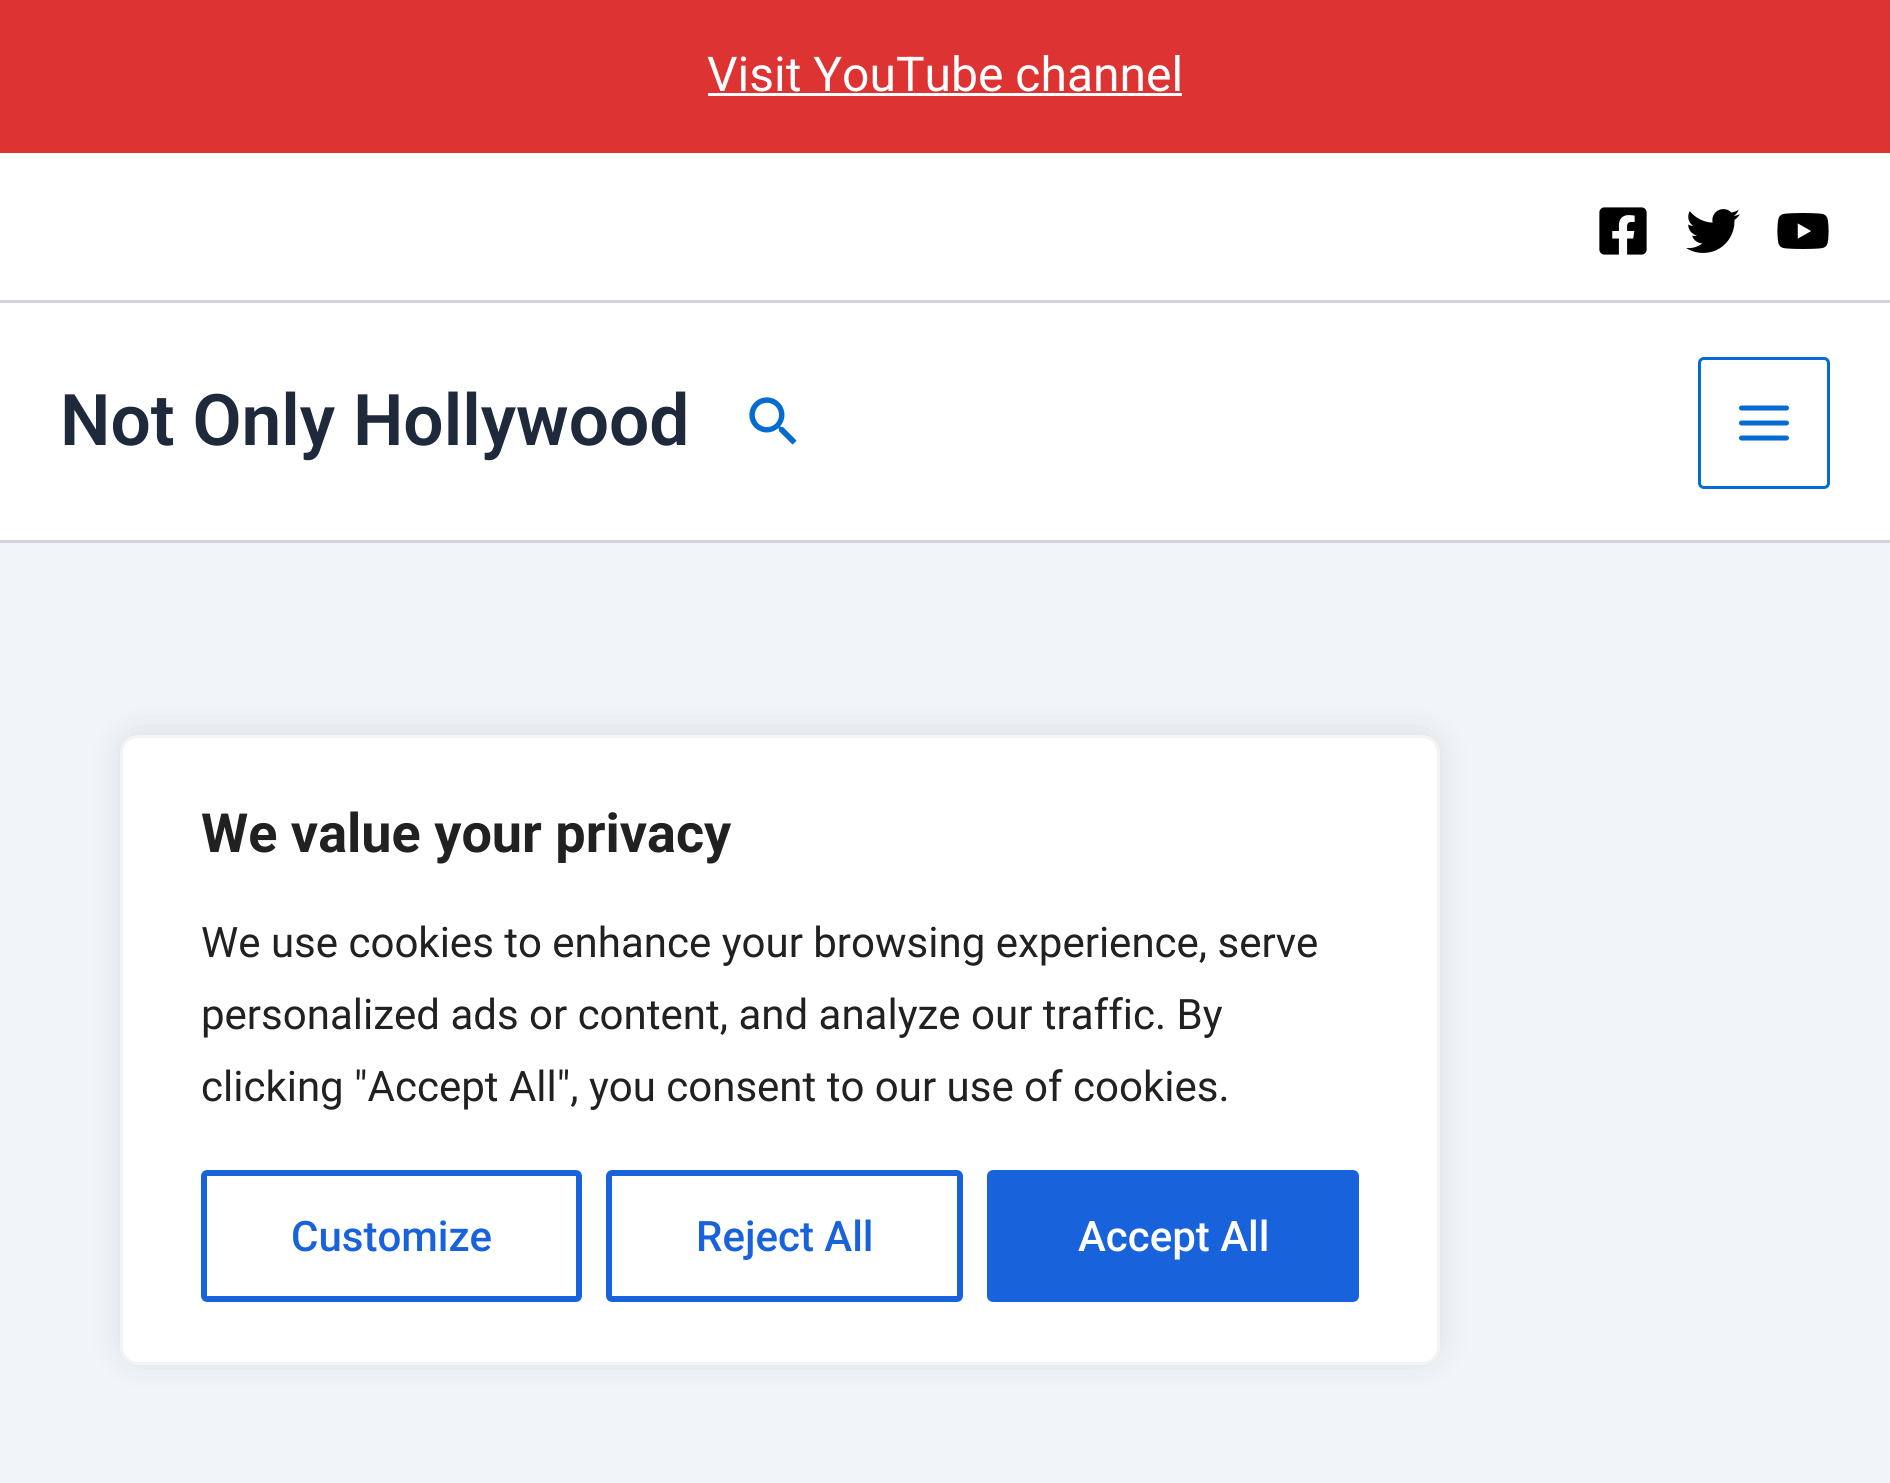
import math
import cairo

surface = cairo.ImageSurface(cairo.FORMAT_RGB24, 1890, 1483)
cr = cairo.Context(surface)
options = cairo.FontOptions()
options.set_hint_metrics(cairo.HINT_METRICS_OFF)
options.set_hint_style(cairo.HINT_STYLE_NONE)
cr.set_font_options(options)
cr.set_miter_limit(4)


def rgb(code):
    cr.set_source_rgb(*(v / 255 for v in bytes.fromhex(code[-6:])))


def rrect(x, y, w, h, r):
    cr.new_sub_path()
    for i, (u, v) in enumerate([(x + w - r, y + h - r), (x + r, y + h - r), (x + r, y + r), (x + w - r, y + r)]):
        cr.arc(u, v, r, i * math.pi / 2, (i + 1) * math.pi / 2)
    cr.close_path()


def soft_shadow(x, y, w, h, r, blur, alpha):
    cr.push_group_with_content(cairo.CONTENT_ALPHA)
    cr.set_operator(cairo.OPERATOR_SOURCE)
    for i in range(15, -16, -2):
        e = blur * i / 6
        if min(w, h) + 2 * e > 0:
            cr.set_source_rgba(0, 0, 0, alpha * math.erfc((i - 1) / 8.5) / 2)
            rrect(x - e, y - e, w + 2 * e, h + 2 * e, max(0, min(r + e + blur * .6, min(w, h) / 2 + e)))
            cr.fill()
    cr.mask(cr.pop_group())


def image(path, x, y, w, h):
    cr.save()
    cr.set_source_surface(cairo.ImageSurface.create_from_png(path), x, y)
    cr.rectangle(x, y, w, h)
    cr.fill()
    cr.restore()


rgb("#f0f5fa")
cr.paint()
for x, y, w, h, color in [
    (0, 0, 1890, 153, "#dd3333"),
    (708, 93, 474, 3, "#ffffff"),
    (0, 153, 1890, 147, "#ffffff"),
    (0, 300, 1890, 3, "#d1d5db"),
]:
    rgb(color)
    cr.rectangle(x, y, w, h)
    cr.fill()
image("img/1.png", 1599, 207, 48, 48)
image("img/2.png", 1686, 209, 54, 44)
image("img/3.png", 1777, 213, 52, 36)
rgb("#ffffff")
cr.rectangle(0, 303, 1890, 237)
cr.fill()
rgb("#d1d5db")
cr.rectangle(0, 540, 1890, 3)
cr.fill()
image("img/4.png", 749, 397, 48, 48)
rrect(1699.5, 358.5, 129, 129, 4.5)
rgb("#046bd2")
cr.set_line_width(3)
cr.stroke()
image("img/5.png", 1739, 405, 50, 36)
rgb("#acabab")
soft_shadow(120, 732, 1320, 630, 18, 15, 0.3)
rgb("#ffffff")
rrect(121.5, 736.5, 1317, 627, 16.5)
cr.fill_preserve()
rgb("#f4f4f4")
cr.stroke()
rrect(204, 1173, 375, 126, 3)
rgb("#1863dc")
cr.set_line_width(6)
cr.stroke()
rrect(609, 1173, 351, 126, 3)
cr.stroke()
rrect(990, 1173, 366, 126, 3)
cr.fill_preserve()
cr.stroke()
cr.select_font_face("Roboto")
cr.set_font_size(48)
rgb("#ffffff")
cr.move_to(707, 91)
cr.show_text("Visit YouTube channel")
cr.select_font_face("Roboto SemiBold")
cr.set_font_size(71.25)
rgb("#1e293b")
cr.move_to(60, 445)
cr.show_text("Not Only Hollywood")
cr.select_font_face("Roboto", cairo.FONT_SLANT_NORMAL, cairo.FONT_WEIGHT_BOLD)
cr.set_font_size(54)
rgb("#212121")
cr.move_to(201, 852)
cr.show_text("We value your privacy")
cr.select_font_face("Roboto")
cr.set_font_size(42)
for x, y, s in [
    (201, 957, "We use cookies to enhance your browsing experience, serve"),
    (201, 1029, "personalized ads or content, and analyze our traffic. By"),
    (201, 1101, "clicking \"Accept All\", you consent to our use of cookies."),
]:
    cr.move_to(x, y)
    cr.show_text(s)
cr.select_font_face("Roboto Medium")
rgb("#1863dc")
cr.move_to(291, 1251)
cr.show_text("Customize")
cr.move_to(696, 1251)
cr.show_text("Reject All")
rgb("#ffffff")
cr.move_to(1078, 1251)
cr.show_text("Accept All")
surface.write_to_png("page.png")
